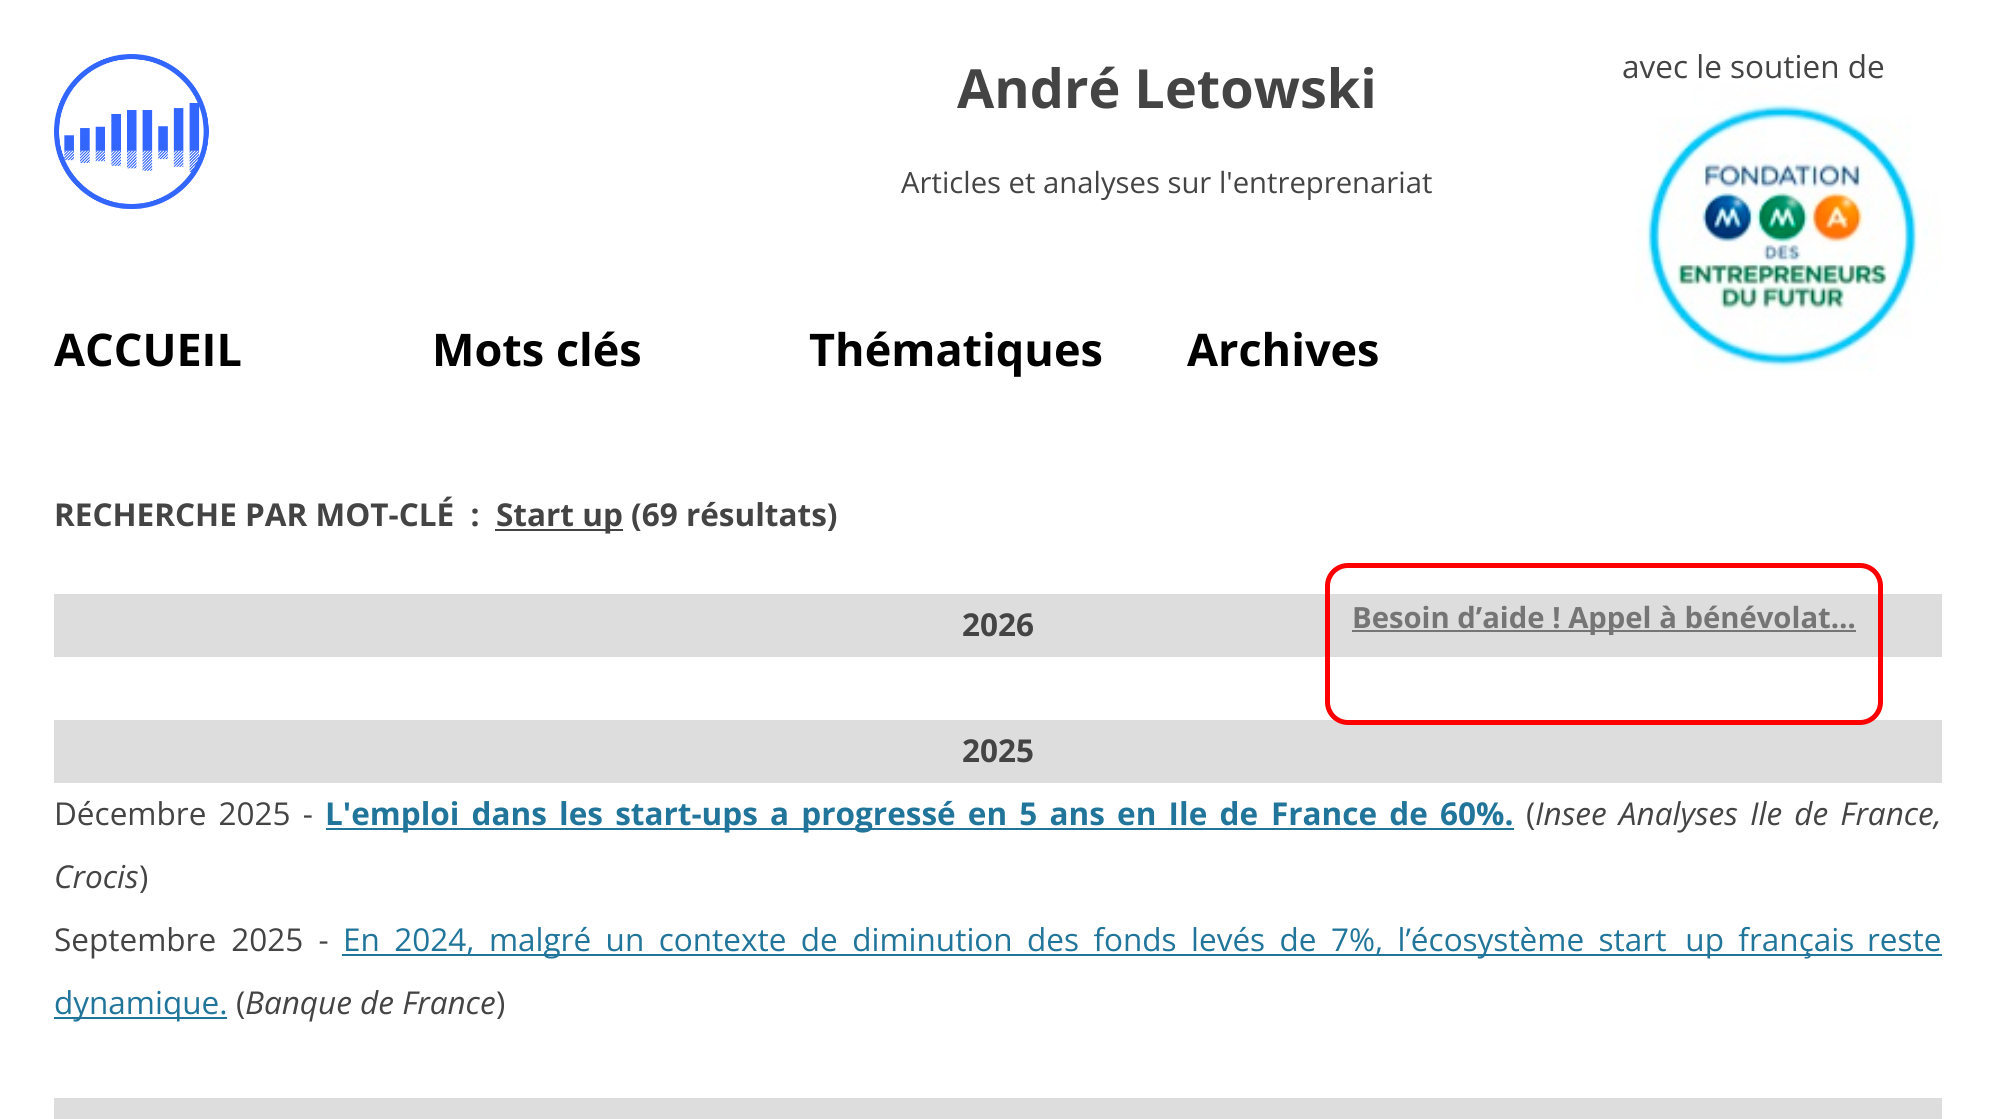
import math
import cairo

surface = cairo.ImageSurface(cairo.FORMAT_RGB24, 1995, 1119)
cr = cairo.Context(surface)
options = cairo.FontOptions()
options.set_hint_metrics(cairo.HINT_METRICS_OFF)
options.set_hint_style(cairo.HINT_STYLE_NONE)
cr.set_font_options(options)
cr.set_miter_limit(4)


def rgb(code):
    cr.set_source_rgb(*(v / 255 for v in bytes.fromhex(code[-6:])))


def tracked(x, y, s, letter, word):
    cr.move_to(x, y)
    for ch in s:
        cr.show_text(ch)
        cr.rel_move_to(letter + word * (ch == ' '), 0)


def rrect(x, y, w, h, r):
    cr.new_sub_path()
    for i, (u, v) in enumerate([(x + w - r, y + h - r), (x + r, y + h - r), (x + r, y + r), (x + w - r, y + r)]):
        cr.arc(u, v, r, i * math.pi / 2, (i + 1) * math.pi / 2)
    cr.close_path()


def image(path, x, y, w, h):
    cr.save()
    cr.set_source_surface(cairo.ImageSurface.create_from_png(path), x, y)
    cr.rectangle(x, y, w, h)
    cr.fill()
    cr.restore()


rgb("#ffffff")
cr.paint()
image("img/1.png", 54, 54, 155, 155)
image("img/2.png", 1636, 84, 305, 287)
for x, y, w, h, color in [
    (495, 529, 128, 2, "#444444"),
    (54, 594, 1888, 63, "#dddddd"),
    (54, 720, 1888, 63, "#dddddd"),
    (326, 828, 1188, 2, "#21759b"),
    (342, 954, 1600, 2, "#21759b"),
    (54, 1017, 173, 2, "#21759b"),
    (54, 1098, 1888, 21, "#dddddd"),
]:
    rgb(color)
    cr.rectangle(x, y, w, h)
    cr.fill()
rrect(1327.5, 565.5, 553, 157, 20.5)
rgb("#ff0000")
cr.set_line_width(5)
cr.stroke()
rgb("#757575")
cr.rectangle(1352, 630, 504, 2)
cr.fill()
cr.select_font_face("Open Sans", cairo.FONT_SLANT_NORMAL, cairo.FONT_WEIGHT_BOLD)
cr.set_font_size(54)
rgb("#444444")
cr.move_to(957, 108)
cr.show_text("André Letowski")
cr.select_font_face("Open Sans")
cr.set_font_size(31.5)
cr.move_to(1622, 78)
cr.show_text("avec le soutien de")
cr.set_font_size(29.25)
cr.move_to(901, 193)
cr.show_text("Articles et analyses sur l'entreprenariat")
cr.select_font_face("Open Sans", cairo.FONT_SLANT_NORMAL, cairo.FONT_WEIGHT_BOLD)
cr.set_font_size(45)
rgb("#000000")
for x, y, s in [
    (54, 366, "ACCUEIL"),
    (432, 366, "Mots clés"),
    (809, 366, "Thématiques"),
    (1187, 366, "Archives"),
]:
    cr.move_to(x, y)
    cr.show_text(s)
cr.set_font_size(31.5)
rgb("#444444")
for x, y, s in [
    (54, 526, "RECHERCHE PAR MOT-CLÉ  :"),
    (496, 526, "Start up (69 résultats)"),
    (962, 636, "2026"),
    (962, 762, "2025"),
]:
    cr.move_to(x, y)
    cr.show_text(s)
cr.select_font_face("Open Sans")
tracked(54, 825, "Décembre 2025 -", 0, 4)
cr.select_font_face("Open Sans", cairo.FONT_SLANT_NORMAL, cairo.FONT_WEIGHT_BOLD)
rgb("#21759b")
tracked(325, 825, "L'emploi dans les start-ups a progressé en 5 ans en Ile de", 0, 4)
tracked(1271, 825, "France de 60%.", 0, 4)
cr.select_font_face("Open Sans")
rgb("#444444")
cr.move_to(1526, 825)
cr.show_text("(")
cr.select_font_face("Open Sans", cairo.FONT_SLANT_ITALIC)
tracked(1535, 825, "Insee Analyses Ile de France,", 0, 4)
cr.move_to(54, 888)
cr.show_text("Crocis")
cr.select_font_face("Open Sans")
cr.move_to(139, 888)
cr.show_text(")")
tracked(54, 951, "Septembre 2025 -", 0, 7)
rgb("#21759b")
tracked(343, 951, "En 2024, malgré un contexte de diminution des fonds levés de 7%, l’écosystème start‑up français", 0, 6.25)
cr.move_to(1867, 951)
cr.show_text("reste")
cr.move_to(54, 1014)
cr.show_text("dynamique.")
rgb("#444444")
cr.move_to(236, 1014)
cr.show_text("(")
cr.select_font_face("Open Sans", cairo.FONT_SLANT_ITALIC)
cr.move_to(245, 1014)
cr.show_text("Banque de France")
cr.select_font_face("Open Sans")
cr.move_to(496, 1014)
cr.show_text(")")
cr.select_font_face("Open Sans", cairo.FONT_SLANT_NORMAL, cairo.FONT_WEIGHT_BOLD)
cr.set_font_size(29.25)
rgb("#757575")
cr.move_to(1352, 628)
cr.show_text("Besoin d’aide ! Appel à bénévolat…")
surface.write_to_png("page.png")
